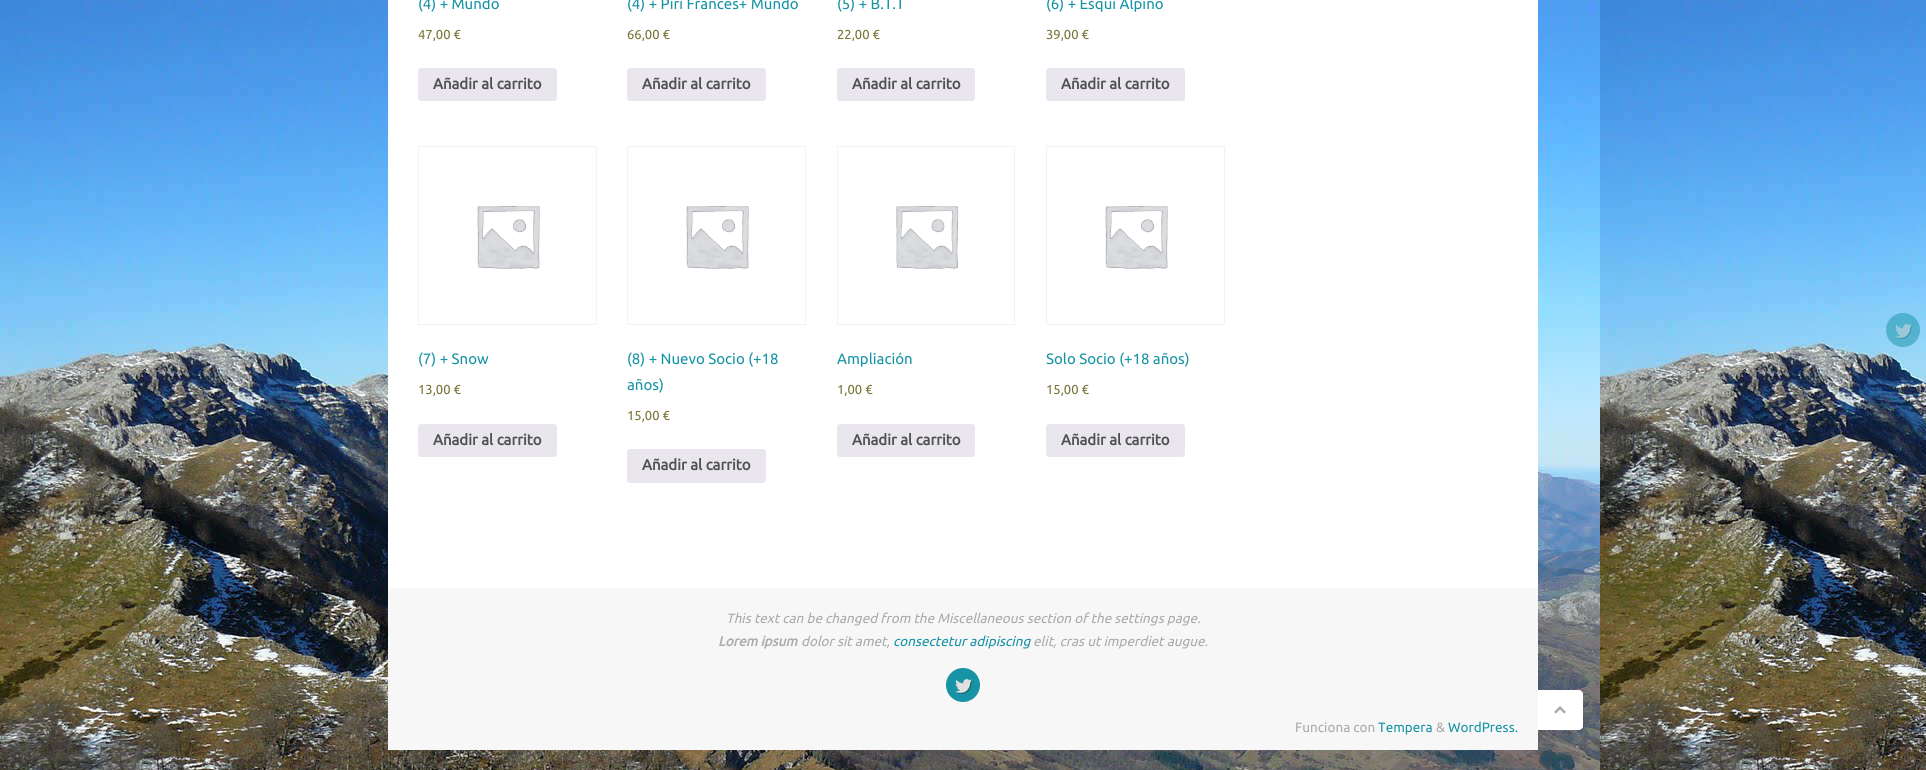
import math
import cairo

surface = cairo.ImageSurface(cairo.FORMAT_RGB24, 1926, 770)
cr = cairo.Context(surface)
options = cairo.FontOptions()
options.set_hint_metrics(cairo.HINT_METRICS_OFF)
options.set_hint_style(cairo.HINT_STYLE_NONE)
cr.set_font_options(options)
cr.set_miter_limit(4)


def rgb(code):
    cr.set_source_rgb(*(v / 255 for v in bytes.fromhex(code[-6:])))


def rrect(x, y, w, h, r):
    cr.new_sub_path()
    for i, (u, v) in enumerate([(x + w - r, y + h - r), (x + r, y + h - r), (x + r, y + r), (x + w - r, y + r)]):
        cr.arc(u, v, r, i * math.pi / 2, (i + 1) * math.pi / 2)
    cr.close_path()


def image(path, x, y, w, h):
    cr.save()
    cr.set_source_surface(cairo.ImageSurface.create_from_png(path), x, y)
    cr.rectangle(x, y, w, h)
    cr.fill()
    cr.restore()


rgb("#ffffff")
cr.paint()
image("img/1.png", 0, 0, 1926, 770)
rgb("#ffffff")
cr.rectangle(388, 0, 1150, 588)
cr.fill()
rgb("#e9e6ed")
rrect(418, 68, 139, 33, 3)
cr.fill()
rrect(627, 68, 139, 33, 3)
cr.fill()
rrect(837, 68, 138, 33, 3)
cr.fill()
rrect(1046, 68, 139, 33, 3)
cr.fill()
cr.rectangle(418.5, 146.5, 178, 178)
rgb("#f2f2f2")
cr.set_line_width(1)
cr.stroke()
image("img/2.png", 477, 205, 63, 64)
rgb("#e9e6ed")
rrect(418, 424, 139, 33, 3)
cr.fill()
cr.rectangle(627.5, 146.5, 178, 178)
rgb("#f2f2f2")
cr.stroke()
image("img/2.png", 686, 205, 63, 64)
rgb("#e9e6ed")
rrect(627, 449, 139, 34, 3)
cr.fill()
cr.rectangle(837.5, 146.5, 177, 178)
rgb("#f2f2f2")
cr.stroke()
image("img/3.png", 896, 205, 63, 64)
rgb("#e9e6ed")
rrect(837, 424, 138, 33, 3)
cr.fill()
cr.rectangle(1046.5, 146.5, 178, 178)
rgb("#f2f2f2")
cr.stroke()
image("img/2.png", 1105, 205, 63, 64)
rgb("#e9e6ed")
rrect(1046, 424, 139, 33, 3)
cr.fill()
rgb("#f7f7f7")
cr.rectangle(388, 588, 1150, 162)
cr.fill()
rgb("#1693a5")
cr.arc(963, 685, 17, 0, 2 * math.pi)
cr.fill()
image("img/4.png", 955, 679, 18, 15)
rgb("#ffffff")
cr.new_path()
cr.move_to(1538, 690)
cr.line_to(1579, 690)
cr.curve_to(1581, 690, 1583, 692, 1583, 694)
cr.line_to(1583, 726)
cr.curve_to(1583, 728, 1581, 730, 1579, 730)
cr.line_to(1538, 730)
cr.close_path()
cr.fill()
image("img/5.png", 1554, 706, 12, 8)
cr.set_source_rgba(0.086, 0.576, 0.647, 0.5)
cr.arc(1903, 330, 17, 0, 2 * math.pi)
cr.fill()
image("img/6.png", 1895, 324, 18, 15)
cr.select_font_face("Ubuntu")
cr.set_font_size(15)
rgb("#1693a5")
cr.move_to(418, 9)
cr.show_text("(4) + Mundo")
cr.set_font_size(13)
rgb("#777335")
cr.move_to(418, 39)
cr.show_text("47,00 €")
cr.select_font_face("Ubuntu", cairo.FONT_SLANT_NORMAL, cairo.FONT_WEIGHT_BOLD)
cr.set_font_size(15)
rgb("#515151")
cr.move_to(433, 89)
cr.show_text("Añadir al carrito")
cr.select_font_face("Ubuntu")
rgb("#1693a5")
cr.move_to(627, 9)
cr.show_text("(4) + Piri Francés+ Mundo")
cr.set_font_size(13)
rgb("#777335")
cr.move_to(627, 39)
cr.show_text("66,00 €")
cr.select_font_face("Ubuntu", cairo.FONT_SLANT_NORMAL, cairo.FONT_WEIGHT_BOLD)
cr.set_font_size(15)
rgb("#515151")
cr.move_to(642, 89)
cr.show_text("Añadir al carrito")
cr.select_font_face("Ubuntu")
rgb("#1693a5")
cr.move_to(837, 9)
cr.show_text("(5) + B.T.T")
cr.set_font_size(13)
rgb("#777335")
cr.move_to(837, 39)
cr.show_text("22,00 €")
cr.select_font_face("Ubuntu", cairo.FONT_SLANT_NORMAL, cairo.FONT_WEIGHT_BOLD)
cr.set_font_size(15)
rgb("#515151")
cr.move_to(852, 89)
cr.show_text("Añadir al carrito")
cr.select_font_face("Ubuntu")
rgb("#1693a5")
cr.move_to(1046, 9)
cr.show_text("(6) + Esquí Alpino")
cr.set_font_size(13)
rgb("#777335")
cr.move_to(1046, 39)
cr.show_text("39,00 €")
cr.select_font_face("Ubuntu", cairo.FONT_SLANT_NORMAL, cairo.FONT_WEIGHT_BOLD)
cr.set_font_size(15)
rgb("#515151")
cr.move_to(1061, 89)
cr.show_text("Añadir al carrito")
cr.select_font_face("Ubuntu")
rgb("#1693a5")
cr.move_to(418, 364)
cr.show_text("(7) + Snow")
cr.set_font_size(13)
rgb("#777335")
cr.move_to(418, 394)
cr.show_text("13,00 €")
cr.select_font_face("Ubuntu", cairo.FONT_SLANT_NORMAL, cairo.FONT_WEIGHT_BOLD)
cr.set_font_size(15)
rgb("#515151")
cr.move_to(433, 445)
cr.show_text("Añadir al carrito")
cr.select_font_face("Ubuntu")
rgb("#1693a5")
cr.move_to(627, 364)
cr.show_text("(8) + Nuevo Socio (+18")
cr.move_to(627, 390)
cr.show_text("años)")
cr.set_font_size(13)
rgb("#777335")
cr.move_to(627, 420)
cr.show_text("15,00 €")
cr.select_font_face("Ubuntu", cairo.FONT_SLANT_NORMAL, cairo.FONT_WEIGHT_BOLD)
cr.set_font_size(15)
rgb("#515151")
cr.move_to(642, 470)
cr.show_text("Añadir al carrito")
cr.select_font_face("Ubuntu")
rgb("#1693a5")
cr.move_to(837, 364)
cr.show_text("Ampliación")
cr.set_font_size(13)
rgb("#777335")
cr.move_to(837, 394)
cr.show_text("1,00 €")
cr.select_font_face("Ubuntu", cairo.FONT_SLANT_NORMAL, cairo.FONT_WEIGHT_BOLD)
cr.set_font_size(15)
rgb("#515151")
cr.move_to(852, 445)
cr.show_text("Añadir al carrito")
cr.select_font_face("Ubuntu")
rgb("#1693a5")
cr.move_to(1046, 364)
cr.show_text("Solo Socio (+18 años)")
cr.set_font_size(13)
rgb("#777335")
cr.move_to(1046, 394)
cr.show_text("15,00 €")
cr.select_font_face("Ubuntu", cairo.FONT_SLANT_NORMAL, cairo.FONT_WEIGHT_BOLD)
cr.set_font_size(15)
rgb("#515151")
cr.move_to(1061, 445)
cr.show_text("Añadir al carrito")
cr.select_font_face("Ubuntu", cairo.FONT_SLANT_ITALIC)
cr.set_font_size(13.5)
rgb("#aaaaaa")
cr.move_to(726, 623)
cr.show_text("This text can be changed from the Miscellaneous section of the settings page.")
cr.select_font_face("Ubuntu", cairo.FONT_SLANT_ITALIC, cairo.FONT_WEIGHT_BOLD)
cr.move_to(718, 646)
cr.show_text("Lorem ipsum")
cr.select_font_face("Ubuntu", cairo.FONT_SLANT_ITALIC)
cr.move_to(801, 646)
cr.show_text("dolor sit amet,")
rgb("#1693a5")
cr.move_to(893, 646)
cr.show_text("consectetur adipiscing")
rgb("#aaaaaa")
cr.move_to(1033, 646)
cr.show_text("elit, cras ut imperdiet augue.")
cr.select_font_face("Ubuntu")
cr.move_to(1295, 732)
cr.show_text("Funciona con")
rgb("#1693a5")
cr.move_to(1378, 732)
cr.show_text("Tempera")
rgb("#aaaaaa")
cr.move_to(1436, 732)
cr.show_text("&")
rgb("#1693a5")
cr.move_to(1448, 732)
cr.show_text("WordPress.")
surface.write_to_png("page.png")
